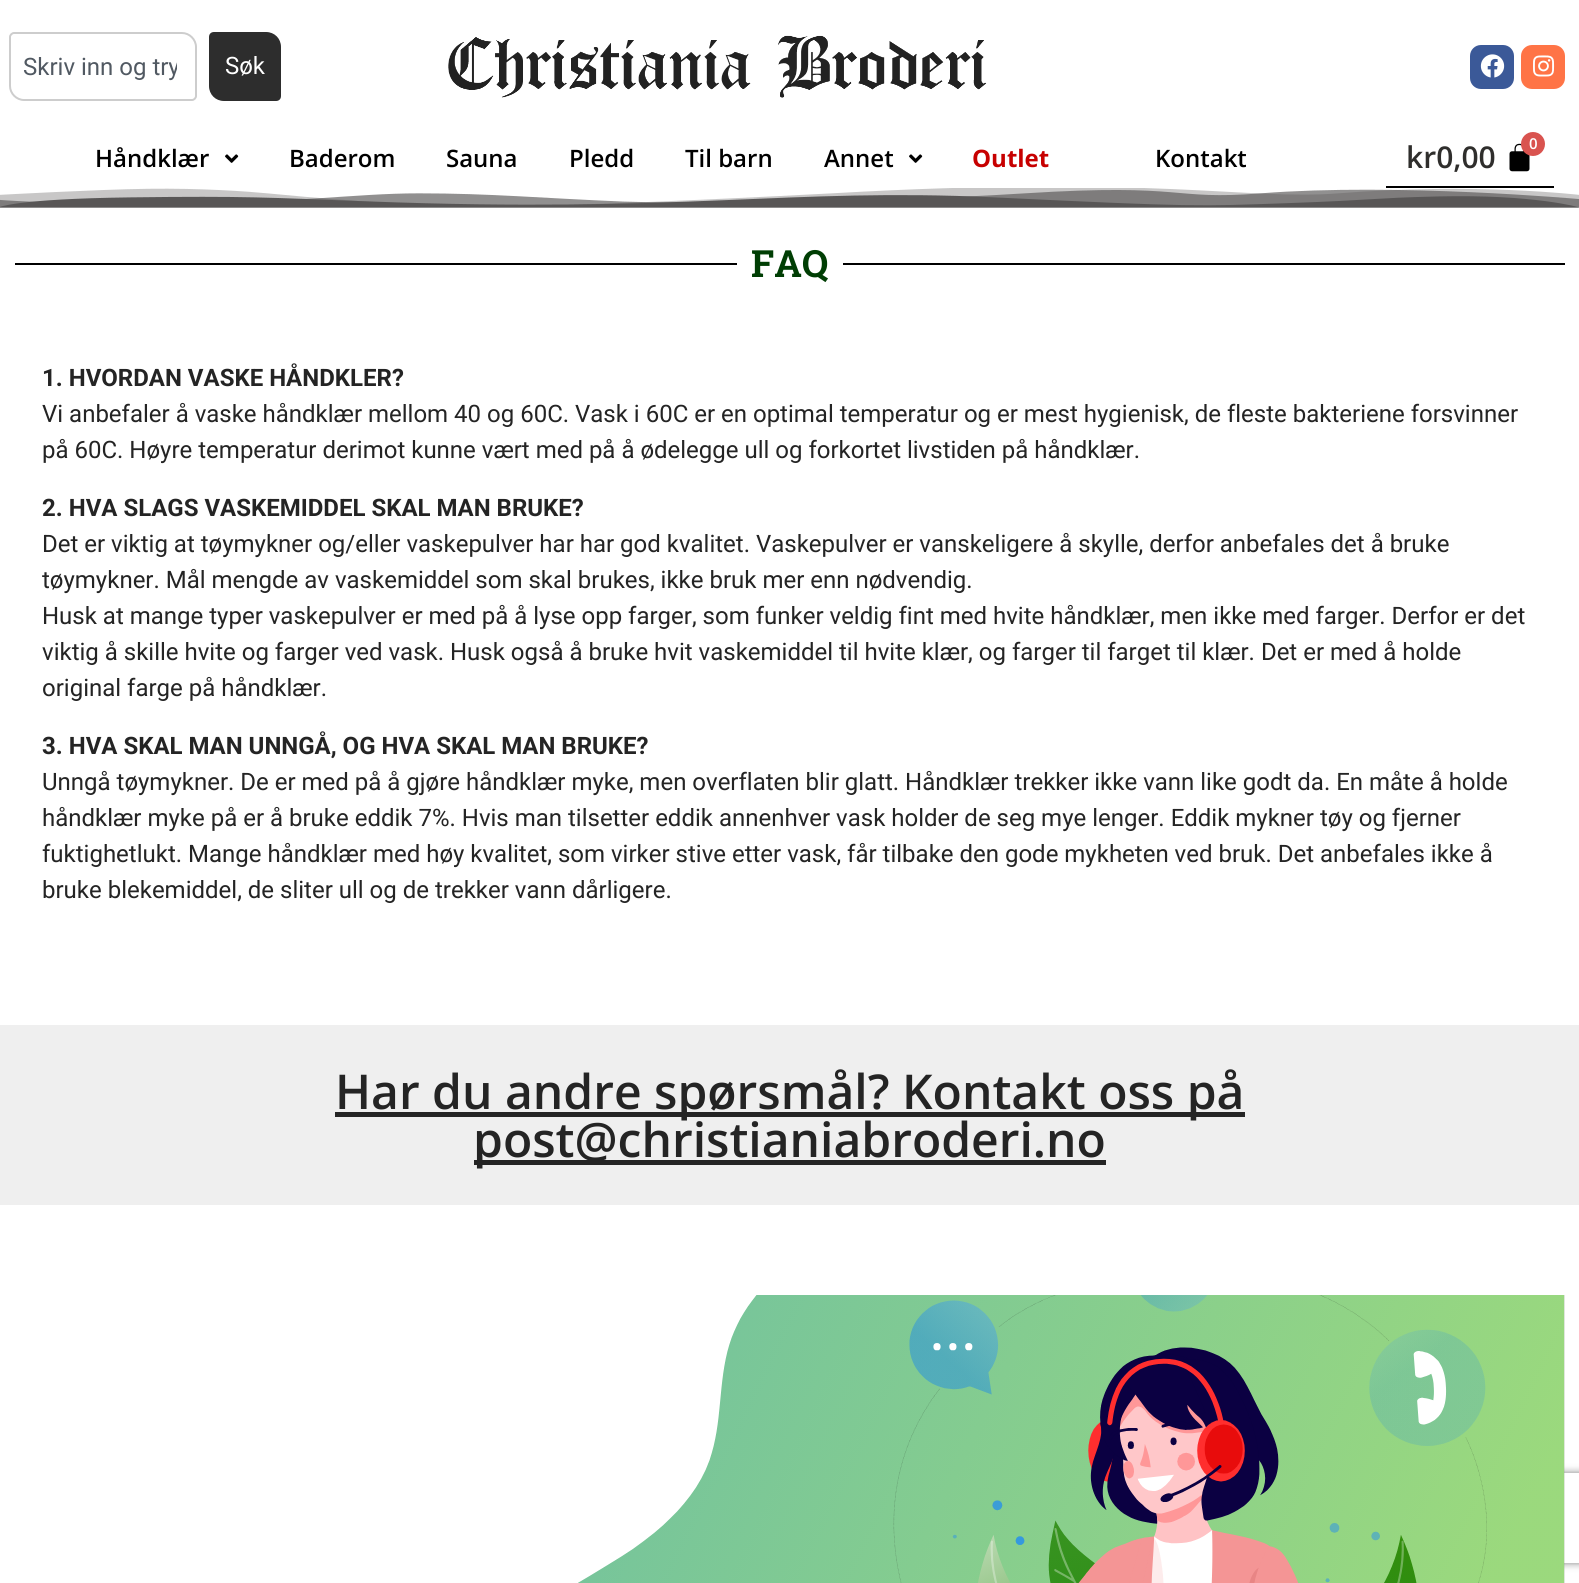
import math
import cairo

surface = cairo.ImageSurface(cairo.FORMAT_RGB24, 1579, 1583)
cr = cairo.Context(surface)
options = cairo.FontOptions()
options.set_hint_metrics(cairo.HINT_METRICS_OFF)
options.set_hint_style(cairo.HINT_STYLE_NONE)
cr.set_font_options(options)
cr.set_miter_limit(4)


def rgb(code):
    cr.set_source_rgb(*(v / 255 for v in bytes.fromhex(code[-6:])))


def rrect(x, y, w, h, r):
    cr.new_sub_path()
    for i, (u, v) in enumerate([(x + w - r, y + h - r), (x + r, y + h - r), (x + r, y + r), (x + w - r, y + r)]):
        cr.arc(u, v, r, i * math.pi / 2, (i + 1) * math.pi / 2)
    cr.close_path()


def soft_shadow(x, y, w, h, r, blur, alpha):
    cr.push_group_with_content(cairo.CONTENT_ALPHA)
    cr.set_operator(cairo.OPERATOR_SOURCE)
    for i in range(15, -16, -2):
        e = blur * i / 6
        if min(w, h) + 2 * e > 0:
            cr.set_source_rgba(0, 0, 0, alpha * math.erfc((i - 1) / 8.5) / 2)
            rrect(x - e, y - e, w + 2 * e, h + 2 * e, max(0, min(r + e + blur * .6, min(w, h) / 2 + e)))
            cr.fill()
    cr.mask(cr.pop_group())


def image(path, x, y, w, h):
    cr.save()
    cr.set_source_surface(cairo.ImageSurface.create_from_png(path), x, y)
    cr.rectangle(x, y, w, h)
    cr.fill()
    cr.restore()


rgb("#ffffff")
cr.paint()
cr.new_path()
cr.move_to(14, 33)
cr.line_to(182, 33)
cr.curve_to(189.5, 33, 196, 39.5, 196, 47)
cr.line_to(196, 96)
cr.curve_to(196, 98, 194, 100, 192, 100)
cr.line_to(24, 100)
cr.curve_to(16.5, 100, 10, 93.5, 10, 86)
cr.line_to(10, 37)
cr.curve_to(10, 35, 12, 33, 14, 33)
cr.close_path()
rgb("#cdcdcd")
cr.stroke()
rgb("#2d2d2d")
cr.new_path()
cr.move_to(214, 32)
cr.line_to(266, 32)
cr.curve_to(274.5, 32, 281, 38.5, 281, 47)
cr.line_to(281, 96)
cr.curve_to(281, 99, 279, 101, 276, 101)
cr.line_to(224, 101)
cr.curve_to(215.5, 101, 209, 94.5, 209, 86)
cr.line_to(209, 37)
cr.curve_to(209, 34, 211, 32, 214, 32)
cr.close_path()
cr.fill()
image("img/1.png", 448, 35, 539, 63)
rgb("#3b5998")
rrect(1470, 45, 44, 44, 11)
cr.fill()
image("img/2.png", 1480, 54, 25, 24)
rgb("#ff7446")
rrect(1521, 45, 44, 44, 11)
cr.fill()
image("img/3.png", 1533, 55, 22, 22)
image("img/4.png", 225, 154, 14, 9)
image("img/4.png", 909, 154, 14, 9)
rgb("#000000")
cr.rectangle(1386, 186, 168, 2)
cr.fill()
image("img/5.png", 1509, 143, 21, 29)
rgb("#d9534f")
cr.arc(1533, 144, 12, 0, 2 * math.pi)
cr.fill()
image("img/6.png", 0, 188, 1579, 20)
for x, y, w, h, color in [
    (15, 263, 722, 2, "#000000"),
    (843, 263, 722, 2, "#000000"),
    (0, 1025, 1579, 180, "#efefef"),
    (335, 1112, 910, 5, "#242424"),
    (474, 1160, 632, 5, "#242424"),
]:
    rgb(color)
    cr.rectangle(x, y, w, h)
    cr.fill()
cr.save()
cr.set_fill_rule(cairo.FILL_RULE_EVEN_ODD)
cr.new_path()
cr.move_to(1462, 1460)
cr.line_to(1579, 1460)
cr.line_to(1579, 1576)
cr.line_to(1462, 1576)
cr.close_path()
cr.move_to(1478, 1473)
cr.line_to(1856, 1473)
cr.curve_to(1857.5, 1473, 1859, 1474.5, 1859, 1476)
cr.line_to(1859, 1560)
cr.curve_to(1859, 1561.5, 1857.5, 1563, 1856, 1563)
cr.line_to(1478, 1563)
cr.curve_to(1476.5, 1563, 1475, 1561.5, 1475, 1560)
cr.line_to(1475, 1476)
cr.curve_to(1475, 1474.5, 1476.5, 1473, 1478, 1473)
cr.close_path()
cr.clip()
rgb("#808080")
soft_shadow(1475, 1473, 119, 90, 3, 4, 1)
cr.restore()
image("img/7.png", 578, 1295, 987, 288)
cr.save()
cr.rectangle(23, 53, 154, 28)
cr.clip()
cr.select_font_face("Roboto")
cr.set_font_size(24)
rgb("#515962")
cr.move_to(23, 75)
cr.show_text("Skriv inn og try")
cr.restore()
cr.select_font_face("Roboto")
cr.set_font_size(24)
rgb("#ffffff")
cr.move_to(225, 74)
cr.show_text("Søk")
cr.select_font_face("Open Sans SemiBold")
rgb("#000000")
for x, y, s in [
    (95, 167, "Håndklær"),
    (289, 167, "Baderom"),
    (446, 167, "Sauna"),
    (569, 167, "Pledd"),
    (685, 167, "Til barn"),
    (824, 167, "Annet"),
]:
    cr.move_to(x, y)
    cr.show_text(s)
cr.select_font_face("Open Sans", cairo.FONT_SLANT_NORMAL, cairo.FONT_WEIGHT_BOLD)
rgb("#c70000")
cr.move_to(972, 167)
cr.show_text("Outlet")
cr.select_font_face("Open Sans SemiBold")
rgb("#000000")
cr.move_to(1155, 167)
cr.show_text("Kontakt")
cr.set_font_size(30)
rgb("#2f2e2c")
cr.move_to(1406, 168)
cr.show_text("kr0,00")
cr.set_font_size(15)
rgb("#ffffff")
cr.move_to(1529, 149)
cr.show_text("0")
cr.select_font_face("Roboto Slab", cairo.FONT_SLANT_NORMAL, cairo.FONT_WEIGHT_BOLD)
cr.set_font_size(37.5)
rgb("#003e04")
cr.move_to(751, 277)
cr.show_text("FAQ")
cr.select_font_face("Roboto", cairo.FONT_SLANT_NORMAL, cairo.FONT_WEIGHT_BOLD)
cr.set_font_size(24)
rgb("#242424")
cr.move_to(42, 386)
cr.show_text("1. HVORDAN VASKE HÅNDKLER?")
cr.select_font_face("Roboto")
cr.move_to(42, 422)
cr.show_text("Vi anbefaler å vaske håndklær mellom 40 og 60C. Vask i 60C er en optimal temperatur og er mest hygienisk, de fleste bakteriene forsvinner")
cr.move_to(42, 458)
cr.show_text("på 60C. Høyre temperatur derimot kunne vært med på å ødelegge ull og forkortet livstiden på håndklær.")
cr.select_font_face("Roboto", cairo.FONT_SLANT_NORMAL, cairo.FONT_WEIGHT_BOLD)
cr.move_to(42, 516)
cr.show_text("2. HVA SLAGS VASKEMIDDEL SKAL MAN BRUKE?")
cr.select_font_face("Roboto")
for x, y, s in [
    (42, 552, "Det er viktig at tøymykner og/eller vaskepulver har har god kvalitet. Vaskepulver er vanskeligere å skylle, derfor anbefales det å bruke"),
    (42, 588, "tøymykner. Mål mengde av vaskemiddel som skal brukes, ikke bruk mer enn nødvendig."),
    (42, 624, "Husk at mange typer vaskepulver er med på å lyse opp farger, som funker veldig fint med hvite håndklær, men ikke med farger. Derfor er det"),
    (42, 660, "viktig å skille hvite og farger ved vask. Husk også å bruke hvit vaskemiddel til hvite klær, og farger til farget til klær. Det er med å holde"),
    (42, 696, "original farge på håndklær."),
]:
    cr.move_to(x, y)
    cr.show_text(s)
cr.select_font_face("Roboto", cairo.FONT_SLANT_NORMAL, cairo.FONT_WEIGHT_BOLD)
cr.move_to(42, 754)
cr.show_text("3. HVA SKAL MAN UNNGÅ, OG HVA SKAL MAN BRUKE?")
cr.select_font_face("Roboto")
for x, y, s in [
    (42, 790, "Unngå tøymykner. De er med på å gjøre håndklær myke, men overflaten blir glatt. Håndklær trekker ikke vann like godt da. En måte å holde"),
    (42, 826, "håndklær myke på er å bruke eddik 7%. Hvis man tilsetter eddik annenhver vask holder de seg mye lenger. Eddik mykner tøy og fjerner"),
    (42, 862, "fuktighetlukt. Mange håndklær med høy kvalitet, som virker stive etter vask, får tilbake den gode mykheten ved bruk. Det anbefales ikke å"),
    (42, 898, "bruke blekemiddel, de sliter ull og de trekker vann dårligere."),
]:
    cr.move_to(x, y)
    cr.show_text(s)
cr.select_font_face("Open Sans SemiBold")
cr.set_font_size(48)
cr.move_to(335, 1109)
cr.show_text("Har du andre spørsmål? Kontakt oss på")
cr.move_to(473, 1157)
cr.show_text("post@christianiabroderi.no")
surface.write_to_png("page.png")
